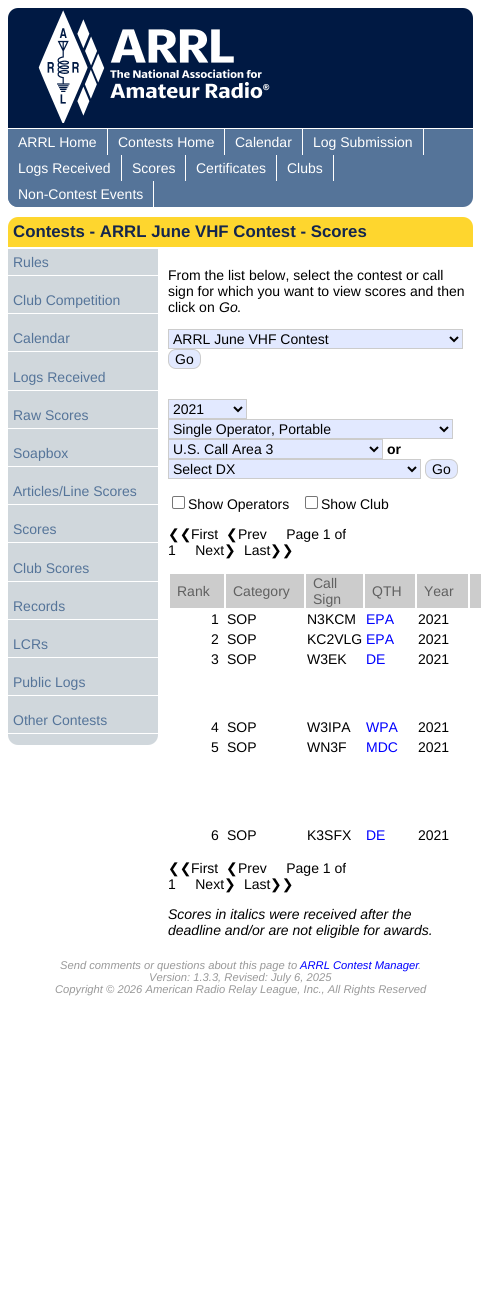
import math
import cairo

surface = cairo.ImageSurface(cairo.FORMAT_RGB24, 481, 1309)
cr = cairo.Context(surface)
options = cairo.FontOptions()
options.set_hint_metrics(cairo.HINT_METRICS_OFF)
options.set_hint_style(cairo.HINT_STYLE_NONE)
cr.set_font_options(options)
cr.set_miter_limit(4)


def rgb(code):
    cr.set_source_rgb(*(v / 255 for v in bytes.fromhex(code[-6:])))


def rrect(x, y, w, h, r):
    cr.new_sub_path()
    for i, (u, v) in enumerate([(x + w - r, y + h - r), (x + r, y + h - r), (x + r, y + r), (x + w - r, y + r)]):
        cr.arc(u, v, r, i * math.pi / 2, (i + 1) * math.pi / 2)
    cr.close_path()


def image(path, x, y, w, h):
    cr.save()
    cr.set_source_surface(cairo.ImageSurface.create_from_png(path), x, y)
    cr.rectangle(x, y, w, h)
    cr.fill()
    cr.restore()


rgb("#ffffff")
cr.paint()
rgb("#001943")
cr.new_path()
cr.move_to(18, 8)
cr.line_to(463, 8)
cr.curve_to(468.5, 8, 473, 12.5, 473, 18)
cr.line_to(473, 128)
cr.line_to(8, 128)
cr.line_to(8, 18)
cr.curve_to(8, 12.5, 12.5, 8, 18, 8)
cr.close_path()
cr.fill()
image("img/1.png", 38, 10, 232, 113)
rgb("#557499")
cr.new_path()
cr.move_to(8, 129)
cr.line_to(473, 129)
cr.line_to(473, 197)
cr.curve_to(473, 202.5, 468.5, 207, 463, 207)
cr.line_to(18, 207)
cr.curve_to(12.5, 207, 8, 202.5, 8, 197)
cr.close_path()
cr.fill()
for x, y, w, h, color in [
    (107, 129, 1, 26, "#ffffff"),
    (224, 129, 1, 26, "#ffffff"),
    (302, 129, 1, 26, "#ffffff"),
    (423, 129, 1, 26, "#ffffff"),
    (121, 155, 1, 26, "#ffffff"),
    (185, 155, 1, 26, "#ffffff"),
    (276, 155, 1, 26, "#ffffff"),
    (333, 155, 1, 26, "#ffffff"),
]:
    rgb(color)
    cr.rectangle(x, y, w, h)
    cr.fill()
rgb("#557499")
cr.new_path()
cr.move_to(8, 181)
cr.line_to(154, 181)
cr.line_to(154, 207)
cr.line_to(18, 207)
cr.curve_to(12.5, 207, 8, 202.5, 8, 197)
cr.close_path()
cr.fill()
rgb("#ffffff")
cr.rectangle(153, 181, 1, 26)
cr.fill()
rgb("#fed62e")
cr.new_path()
cr.move_to(18, 217)
cr.line_to(463, 217)
cr.curve_to(468.5, 217, 473, 221.5, 473, 227)
cr.line_to(473, 247)
cr.line_to(8, 247)
cr.line_to(8, 227)
cr.curve_to(8, 221.5, 12.5, 217, 18, 217)
cr.close_path()
cr.fill()
rgb("#d0d7dc")
cr.new_path()
cr.move_to(8, 249)
cr.line_to(158, 249)
cr.line_to(158, 735)
cr.curve_to(158, 740.5, 153.5, 745, 148, 745)
cr.line_to(18, 745)
cr.curve_to(12.5, 745, 8, 740.5, 8, 735)
cr.close_path()
cr.fill()
for x, y, w, h, color in [
    (8, 275, 150, 1, "#ffffff"),
    (8, 313, 150, 1, "#ffffff"),
    (8, 351, 150, 1, "#ffffff"),
    (8, 390, 150, 1, "#ffffff"),
    (8, 428, 150, 1, "#ffffff"),
    (8, 466, 150, 1, "#ffffff"),
    (8, 504, 150, 1, "#ffffff"),
    (8, 542, 150, 1, "#ffffff"),
    (8, 581, 150, 1, "#ffffff"),
    (8, 619, 150, 1, "#ffffff"),
    (8, 657, 150, 1, "#ffffff"),
    (8, 695, 150, 1, "#ffffff"),
    (8, 733, 150, 1, "#ffffff"),
]:
    rgb(color)
    cr.rectangle(x, y, w, h)
    cr.fill()
rgb("#e2e9ff")
cr.rectangle(168.5, 329.5, 294, 19)
cr.fill_preserve()
rgb("#cccccc")
cr.set_line_width(1)
cr.stroke()
cr.new_path()
cr.move_to(450, 337)
cr.line_to(454, 341)
cr.line_to(458, 337)
rgb("#000000")
cr.set_line_width(2)
cr.stroke()
rgb("#e2e9ff")
rrect(168.5, 349.5, 32, 19, 7.5)
cr.fill_preserve()
rgb("#cccccc")
cr.set_line_width(1)
cr.stroke()
rgb("#e2e9ff")
cr.rectangle(168.5, 399.5, 78, 19)
cr.fill_preserve()
rgb("#cccccc")
cr.stroke()
cr.new_path()
cr.move_to(234, 407)
cr.line_to(238, 411)
cr.line_to(242, 407)
rgb("#000000")
cr.set_line_width(2)
cr.stroke()
rgb("#e2e9ff")
cr.rectangle(168.5, 419.5, 284, 19)
cr.fill_preserve()
rgb("#cccccc")
cr.set_line_width(1)
cr.stroke()
cr.new_path()
cr.move_to(440, 427)
cr.line_to(444, 431)
cr.line_to(448, 427)
rgb("#000000")
cr.set_line_width(2)
cr.stroke()
rgb("#e2e9ff")
cr.rectangle(168.5, 439.5, 214, 19)
cr.fill_preserve()
rgb("#cccccc")
cr.set_line_width(1)
cr.stroke()
cr.new_path()
cr.move_to(370, 447)
cr.line_to(374, 451)
cr.line_to(378, 447)
rgb("#000000")
cr.set_line_width(2)
cr.stroke()
rgb("#e2e9ff")
cr.rectangle(168.5, 459.5, 252, 19)
cr.fill_preserve()
rgb("#cccccc")
cr.set_line_width(1)
cr.stroke()
cr.new_path()
cr.move_to(408, 467)
cr.line_to(412, 471)
cr.line_to(416, 467)
rgb("#000000")
cr.set_line_width(2)
cr.stroke()
rgb("#e2e9ff")
rrect(425.5, 459.5, 32, 19, 7.5)
cr.fill_preserve()
rgb("#cccccc")
cr.set_line_width(1)
cr.stroke()
rrect(172.5, 496.5, 12, 12, 1.5)
rgb("#767676")
cr.stroke()
rrect(305.5, 496.5, 12, 12, 1.5)
cr.stroke()
for x, y, w, h, color in [
    (170, 574, 54, 34, "#cccccc"),
    (226, 574, 78, 34, "#cccccc"),
    (306, 574, 57, 34, "#cccccc"),
    (365, 574, 50, 34, "#cccccc"),
    (417, 574, 51, 34, "#cccccc"),
    (470, 574, 11, 34, "#cccccc"),
]:
    rgb(color)
    cr.rectangle(x, y, w, h)
    cr.fill()
cr.select_font_face("Liberation Sans")
cr.set_font_size(14)
rgb("#ffffff")
for x, y, s in [
    (18, 147, "ARRL Home"),
    (118, 147, "Contests Home"),
    (235, 147, "Calendar"),
    (313, 147, "Log Submission"),
    (18, 173, "Logs Received"),
    (132, 173, "Scores"),
    (196, 173, "Certificates"),
    (287, 173, "Clubs"),
    (18, 199, "Non-Contest Events"),
]:
    cr.move_to(x, y)
    cr.show_text(s)
cr.select_font_face("Liberation Sans", cairo.FONT_SLANT_NORMAL, cairo.FONT_WEIGHT_BOLD)
cr.set_font_size(16.8)
rgb("#14264d")
cr.move_to(13, 237)
cr.show_text("Contests - ARRL June VHF Contest - Scores")
cr.select_font_face("Liberation Sans")
cr.set_font_size(14)
rgb("#557499")
for x, y, s in [
    (13, 267, "Rules"),
    (13, 305, "Club Competition"),
    (13, 343, "Calendar"),
    (13, 382, "Logs Received"),
    (13, 420, "Raw Scores"),
    (13, 458, "Soapbox"),
    (13, 496, "Articles/Line Scores"),
    (13, 534, "Scores"),
    (13, 573, "Club Scores"),
    (13, 611, "Records"),
    (13, 649, "LCRs"),
    (13, 687, "Public Logs"),
    (13, 725, "Other Contests"),
]:
    cr.move_to(x, y)
    cr.show_text(s)
rgb("#000000")
for x, y, s in [
    (168, 280, "From the list below, select the contest or call"),
    (168, 296, "sign for which you want to view scores and then"),
    (168, 312, "click on"),
]:
    cr.move_to(x, y)
    cr.show_text(s)
cr.select_font_face("Liberation Sans", cairo.FONT_SLANT_ITALIC)
cr.move_to(219, 312)
cr.show_text("Go")
cr.select_font_face("Liberation Sans")
for x, y, s in [
    (237, 312, "."),
    (173, 344, "ARRL June VHF Contest"),
    (175, 364, "Go"),
    (173, 414, "2021"),
    (173, 434, "Single Operator, Portable"),
    (173, 454, "U.S. Call Area 3"),
]:
    cr.move_to(x, y)
    cr.show_text(s)
cr.select_font_face("Liberation Sans", cairo.FONT_SLANT_NORMAL, cairo.FONT_WEIGHT_BOLD)
cr.move_to(387, 454)
cr.show_text("or")
cr.select_font_face("Liberation Sans")
for x, y, s in [
    (173, 474, "Select DX"),
    (432, 474, "Go"),
    (188, 509, "Show Operators"),
    (321, 509, "Show Club"),
]:
    cr.move_to(x, y)
    cr.show_text(s)
cr.select_font_face("DejaVu Sans")
cr.move_to(168, 539)
cr.show_text("❮❮")
cr.select_font_face("Liberation Sans")
cr.move_to(191, 539)
cr.show_text("First")
cr.select_font_face("DejaVu Sans")
cr.move_to(226, 539)
cr.show_text("❮")
cr.select_font_face("Liberation Sans")
cr.move_to(238, 539)
cr.show_text("Prev     Page 1 of")
cr.move_to(168, 555)
cr.show_text("1     Next")
cr.select_font_face("DejaVu Sans")
cr.move_to(224, 555)
cr.show_text("❯")
cr.select_font_face("Liberation Sans")
cr.move_to(244, 555)
cr.show_text("Last")
cr.select_font_face("DejaVu Sans")
cr.move_to(270, 555)
cr.show_text("❯❯")
cr.select_font_face("Liberation Sans")
rgb("#606060")
for x, y, s in [
    (177, 596, "Rank"),
    (233, 596, "Category"),
    (313, 588, "Call"),
    (313, 604, "Sign"),
    (372, 596, "QTH"),
    (424, 596, "Year"),
]:
    cr.move_to(x, y)
    cr.show_text(s)
rgb("#000000")
for x, y, s in [
    (211, 624, "1"),
    (227, 624, "SOP"),
    (307, 624, "N3KCM"),
]:
    cr.move_to(x, y)
    cr.show_text(s)
rgb("#0000ff")
cr.move_to(366, 624)
cr.show_text("EPA")
rgb("#000000")
for x, y, s in [
    (418, 624, "2021"),
    (211, 644, "2"),
    (227, 644, "SOP"),
    (307, 644, "KC2VLG"),
]:
    cr.move_to(x, y)
    cr.show_text(s)
rgb("#0000ff")
cr.move_to(366, 644)
cr.show_text("EPA")
rgb("#000000")
for x, y, s in [
    (418, 644, "2021"),
    (211, 664, "3"),
    (227, 664, "SOP"),
    (307, 664, "W3EK"),
]:
    cr.move_to(x, y)
    cr.show_text(s)
rgb("#0000ff")
cr.move_to(366, 664)
cr.show_text("DE")
rgb("#000000")
for x, y, s in [
    (418, 664, "2021"),
    (211, 732, "4"),
    (227, 732, "SOP"),
    (307, 732, "W3IPA"),
]:
    cr.move_to(x, y)
    cr.show_text(s)
rgb("#0000ff")
cr.move_to(366, 732)
cr.show_text("WPA")
rgb("#000000")
for x, y, s in [
    (418, 732, "2021"),
    (211, 752, "5"),
    (227, 752, "SOP"),
    (307, 752, "WN3F"),
]:
    cr.move_to(x, y)
    cr.show_text(s)
rgb("#0000ff")
cr.move_to(366, 752)
cr.show_text("MDC")
rgb("#000000")
for x, y, s in [
    (418, 752, "2021"),
    (211, 840, "6"),
    (227, 840, "SOP"),
    (307, 840, "K3SFX"),
]:
    cr.move_to(x, y)
    cr.show_text(s)
rgb("#0000ff")
cr.move_to(366, 840)
cr.show_text("DE")
rgb("#000000")
cr.move_to(418, 840)
cr.show_text("2021")
cr.select_font_face("DejaVu Sans")
cr.move_to(168, 873)
cr.show_text("❮❮")
cr.select_font_face("Liberation Sans")
cr.move_to(191, 873)
cr.show_text("First")
cr.select_font_face("DejaVu Sans")
cr.move_to(226, 873)
cr.show_text("❮")
cr.select_font_face("Liberation Sans")
cr.move_to(238, 873)
cr.show_text("Prev     Page 1 of")
cr.move_to(168, 889)
cr.show_text("1     Next")
cr.select_font_face("DejaVu Sans")
cr.move_to(224, 889)
cr.show_text("❯")
cr.select_font_face("Liberation Sans")
cr.move_to(244, 889)
cr.show_text("Last")
cr.select_font_face("DejaVu Sans")
cr.move_to(270, 889)
cr.show_text("❯❯")
cr.select_font_face("Liberation Sans", cairo.FONT_SLANT_ITALIC)
cr.move_to(168, 919)
cr.show_text("Scores in italics were received after the")
cr.move_to(168, 935)
cr.show_text("deadline and/or are not eligible for awards.")
cr.set_font_size(11.2)
rgb("#999999")
cr.move_to(60, 969)
cr.show_text("Send comments or questions about this page to")
rgb("#0000ff")
cr.move_to(300, 969)
cr.show_text("ARRL Contest Manager")
rgb("#999999")
for x, y, s in [
    (418, 969, "."),
    (149, 981, "Version: 1.3.3, Revised: July 6, 2025"),
    (55, 993, "Copyright © 2026 American Radio Relay League, Inc., All Rights Reserved"),
]:
    cr.move_to(x, y)
    cr.show_text(s)
surface.write_to_png("page.png")
